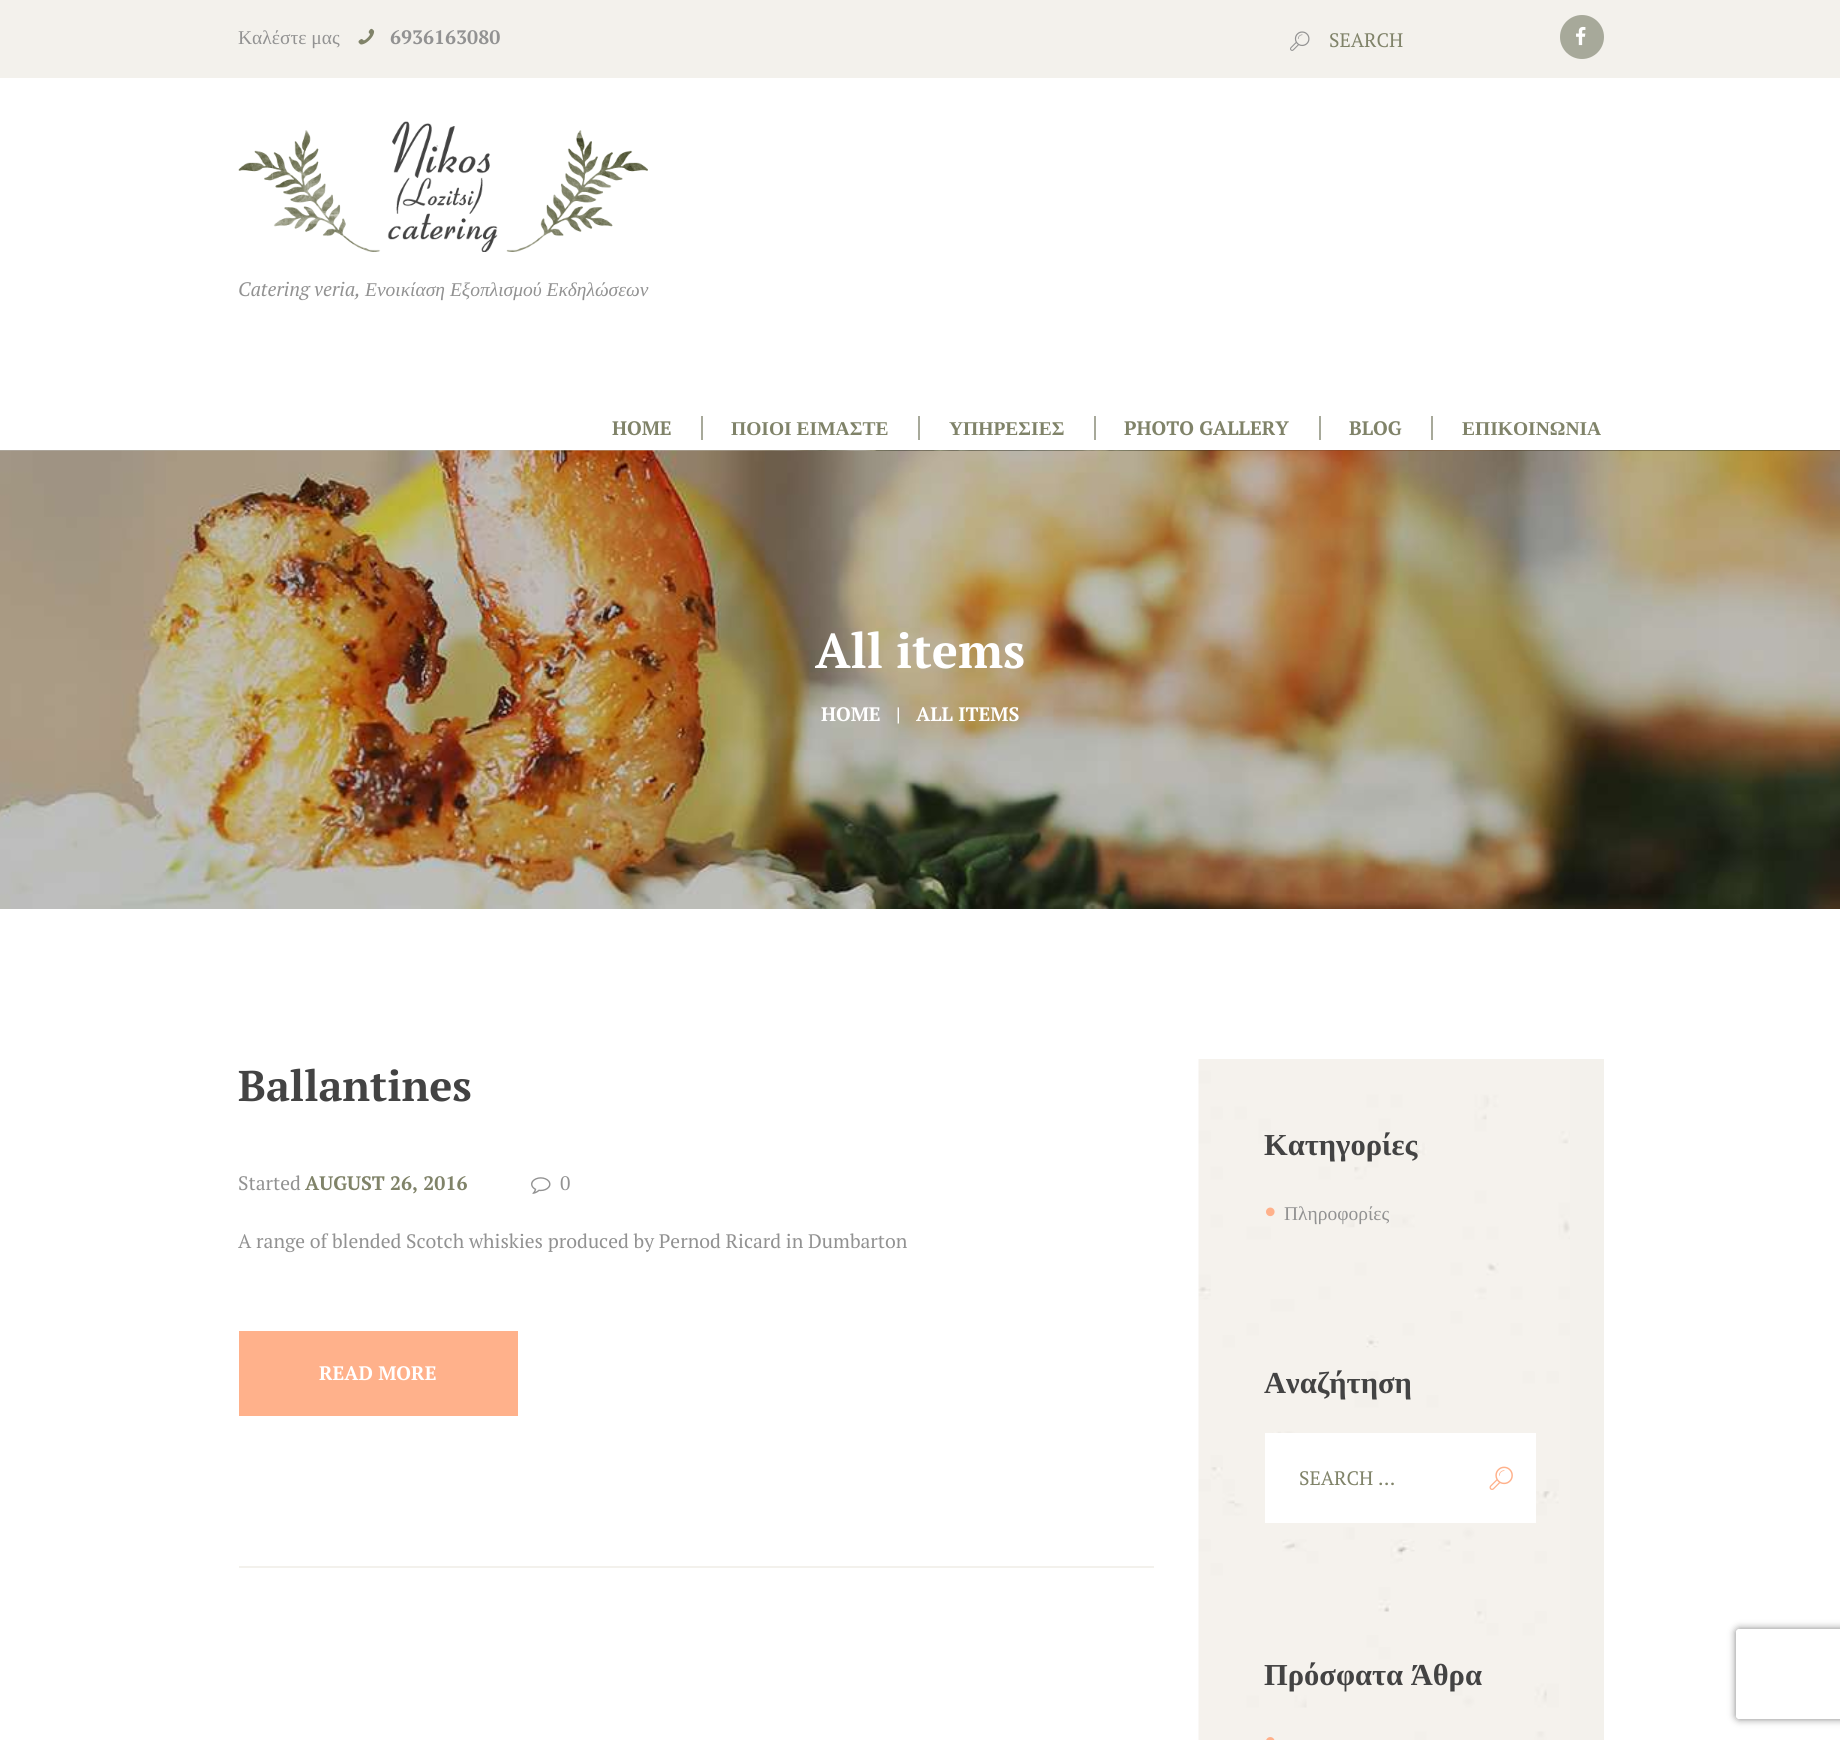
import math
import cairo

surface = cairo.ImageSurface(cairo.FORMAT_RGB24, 1840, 1740)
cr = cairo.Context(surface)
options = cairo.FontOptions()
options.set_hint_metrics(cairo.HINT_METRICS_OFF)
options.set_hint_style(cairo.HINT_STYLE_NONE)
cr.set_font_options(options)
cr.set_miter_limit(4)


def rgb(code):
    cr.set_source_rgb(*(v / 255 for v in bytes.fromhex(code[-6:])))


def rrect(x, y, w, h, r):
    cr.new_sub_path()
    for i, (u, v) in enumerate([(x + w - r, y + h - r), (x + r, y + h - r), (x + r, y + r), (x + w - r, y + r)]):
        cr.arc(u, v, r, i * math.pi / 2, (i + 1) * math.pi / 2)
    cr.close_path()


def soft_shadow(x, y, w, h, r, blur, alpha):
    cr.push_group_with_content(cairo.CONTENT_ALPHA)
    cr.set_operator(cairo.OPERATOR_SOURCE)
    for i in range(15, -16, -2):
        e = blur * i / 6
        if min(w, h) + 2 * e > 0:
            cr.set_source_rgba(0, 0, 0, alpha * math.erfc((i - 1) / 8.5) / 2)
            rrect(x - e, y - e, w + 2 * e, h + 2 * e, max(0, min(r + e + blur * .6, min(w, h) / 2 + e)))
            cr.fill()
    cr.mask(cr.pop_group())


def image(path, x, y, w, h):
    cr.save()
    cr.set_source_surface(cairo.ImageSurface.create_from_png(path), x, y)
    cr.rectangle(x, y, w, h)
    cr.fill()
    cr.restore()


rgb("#ffffff")
cr.paint()
rgb("#f3f1ec")
cr.rectangle(0, 0, 1840, 78)
cr.fill()
image("img/1.png", 358, 28, 17, 17)
image("img/2.png", 1290, 31, 20, 20)
rgb("#a7a99a")
cr.arc(1582, 37, 22, 0, 2 * math.pi)
cr.fill()
image("img/3.png", 1576, 26, 10, 20)
image("img/4.png", 238, 121, 410, 131)
for x, y, w, h, color in [
    (701, 416, 2, 24, "#a7a99a"),
    (918, 416, 2, 24, "#a7a99a"),
    (1094, 416, 2, 24, "#a7a99a"),
    (1319, 416, 2, 24, "#a7a99a"),
    (1431, 416, 2, 24, "#a7a99a"),
]:
    rgb(color)
    cr.rectangle(x, y, w, h)
    cr.fill()
image("img/5.png", 0, 450, 1840, 459)
image("img/6.png", 531, 1177, 20, 17)
for x, y, w, h, color in [
    (239, 1331, 279, 85, "#ffb18b"),
    (239, 1566, 915, 2, "#f3f1ec"),
    (1570, 1059, 34, 681, "#f3f1ec"),
]:
    rgb(color)
    cr.rectangle(x, y, w, h)
    cr.fill()
image("img/7.png", 1198, 1059, 372, 681)
image("img/8.png", 1266, 1207, 9, 10)
rgb("#ffffff")
cr.rectangle(1265, 1433, 271, 90)
cr.fill()
image("img/9.png", 1489, 1466, 24, 24)
image("img/10.png", 1266, 1737, 9, 3)
cr.save()
cr.set_fill_rule(cairo.FILL_RULE_EVEN_ODD)
cr.new_path()
cr.move_to(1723, 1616)
cr.line_to(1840, 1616)
cr.line_to(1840, 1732)
cr.line_to(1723, 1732)
cr.close_path()
cr.move_to(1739, 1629)
cr.line_to(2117, 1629)
cr.curve_to(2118.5, 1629, 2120, 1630.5, 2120, 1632)
cr.line_to(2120, 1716)
cr.curve_to(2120, 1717.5, 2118.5, 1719, 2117, 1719)
cr.line_to(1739, 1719)
cr.curve_to(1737.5, 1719, 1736, 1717.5, 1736, 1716)
cr.line_to(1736, 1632)
cr.curve_to(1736, 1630.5, 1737.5, 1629, 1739, 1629)
cr.close_path()
cr.clip()
rgb("#808080")
soft_shadow(1736, 1629, 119, 90, 3, 4, 1)
cr.restore()
cr.select_font_face("Liberation Serif")
cr.set_font_size(19.5)
rgb("#929292")
cr.move_to(238, 44)
cr.show_text("Καλέστε μας")
cr.select_font_face("PT Serif", cairo.FONT_SLANT_NORMAL, cairo.FONT_WEIGHT_BOLD)
cr.move_to(390, 44)
cr.show_text("6936163080")
cr.select_font_face("PT Serif")
rgb("#808369")
cr.move_to(1329, 47)
cr.show_text("SEARCH")
cr.select_font_face("PT Serif", cairo.FONT_SLANT_ITALIC)
rgb("#929292")
cr.move_to(238, 296)
cr.show_text("Catering veria,")
cr.select_font_face("Liberation Serif", cairo.FONT_SLANT_ITALIC)
cr.move_to(365, 296)
cr.show_text("Ενοικίαση Εξοπλισμού Εκδηλώσεων")
cr.select_font_face("PT Serif", cairo.FONT_SLANT_NORMAL, cairo.FONT_WEIGHT_BOLD)
rgb("#808369")
cr.move_to(612, 435)
cr.show_text("HOME")
cr.select_font_face("Liberation Serif", cairo.FONT_SLANT_NORMAL, cairo.FONT_WEIGHT_BOLD)
cr.move_to(731, 435)
cr.show_text("ΠΟΙΟΙ ΕΙΜΑΣΤΕ")
cr.move_to(949, 435)
cr.show_text("ΥΠΗΡΕΣΙΕΣ")
cr.select_font_face("PT Serif", cairo.FONT_SLANT_NORMAL, cairo.FONT_WEIGHT_BOLD)
cr.move_to(1124, 435)
cr.show_text("PHOTO GALLERY")
cr.move_to(1349, 435)
cr.show_text("BLOG")
cr.select_font_face("Liberation Serif", cairo.FONT_SLANT_NORMAL, cairo.FONT_WEIGHT_BOLD)
cr.move_to(1462, 435)
cr.show_text("ΕΠΙΚΟΙΝΩΝΙΑ")
cr.select_font_face("PT Serif", cairo.FONT_SLANT_NORMAL, cairo.FONT_WEIGHT_BOLD)
cr.set_font_size(48.75)
rgb("#ffffff")
cr.move_to(815, 668)
cr.show_text("All items")
cr.set_font_size(19.5)
for x, y, s in [
    (821, 721, "HOME"),
    (896, 721, "|"),
    (916, 721, "ALL ITEMS"),
]:
    cr.move_to(x, y)
    cr.show_text(s)
cr.set_font_size(43)
rgb("#434343")
cr.move_to(238, 1101)
cr.show_text("Ballantines")
cr.select_font_face("PT Serif")
cr.set_font_size(19.5)
rgb("#929292")
cr.move_to(238, 1190)
cr.show_text("Started")
cr.select_font_face("PT Serif", cairo.FONT_SLANT_NORMAL, cairo.FONT_WEIGHT_BOLD)
rgb("#808369")
cr.move_to(305, 1190)
cr.show_text("AUGUST 26, 2016")
cr.select_font_face("PT Serif")
rgb("#929292")
cr.move_to(560, 1190)
cr.show_text("0")
cr.move_to(238, 1248)
cr.show_text("A range of blended Scotch whiskies produced by Pernod Ricard in Dumbarton")
cr.select_font_face("PT Serif", cairo.FONT_SLANT_NORMAL, cairo.FONT_WEIGHT_BOLD)
rgb("#ffffff")
cr.move_to(319, 1380)
cr.show_text("READ MORE")
cr.select_font_face("Liberation Serif", cairo.FONT_SLANT_NORMAL, cairo.FONT_WEIGHT_BOLD)
cr.set_font_size(30.5)
rgb("#434343")
cr.move_to(1264, 1155)
cr.show_text("Κατηγορίες")
cr.select_font_face("Liberation Serif")
cr.set_font_size(19.5)
rgb("#929292")
cr.move_to(1284, 1220)
cr.show_text("Πληροφορίες")
cr.select_font_face("Liberation Serif", cairo.FONT_SLANT_NORMAL, cairo.FONT_WEIGHT_BOLD)
cr.set_font_size(30.5)
rgb("#434343")
cr.move_to(1264, 1393)
cr.show_text("Αναζήτηση")
cr.select_font_face("PT Serif")
cr.set_font_size(19.5)
rgb("#808369")
cr.move_to(1299, 1485)
cr.show_text("SEARCH …")
cr.select_font_face("Liberation Serif", cairo.FONT_SLANT_NORMAL, cairo.FONT_WEIGHT_BOLD)
cr.set_font_size(30.5)
rgb("#434343")
cr.move_to(1264, 1685)
cr.show_text("Πρόσφατα Άθρα")
surface.write_to_png("page.png")
